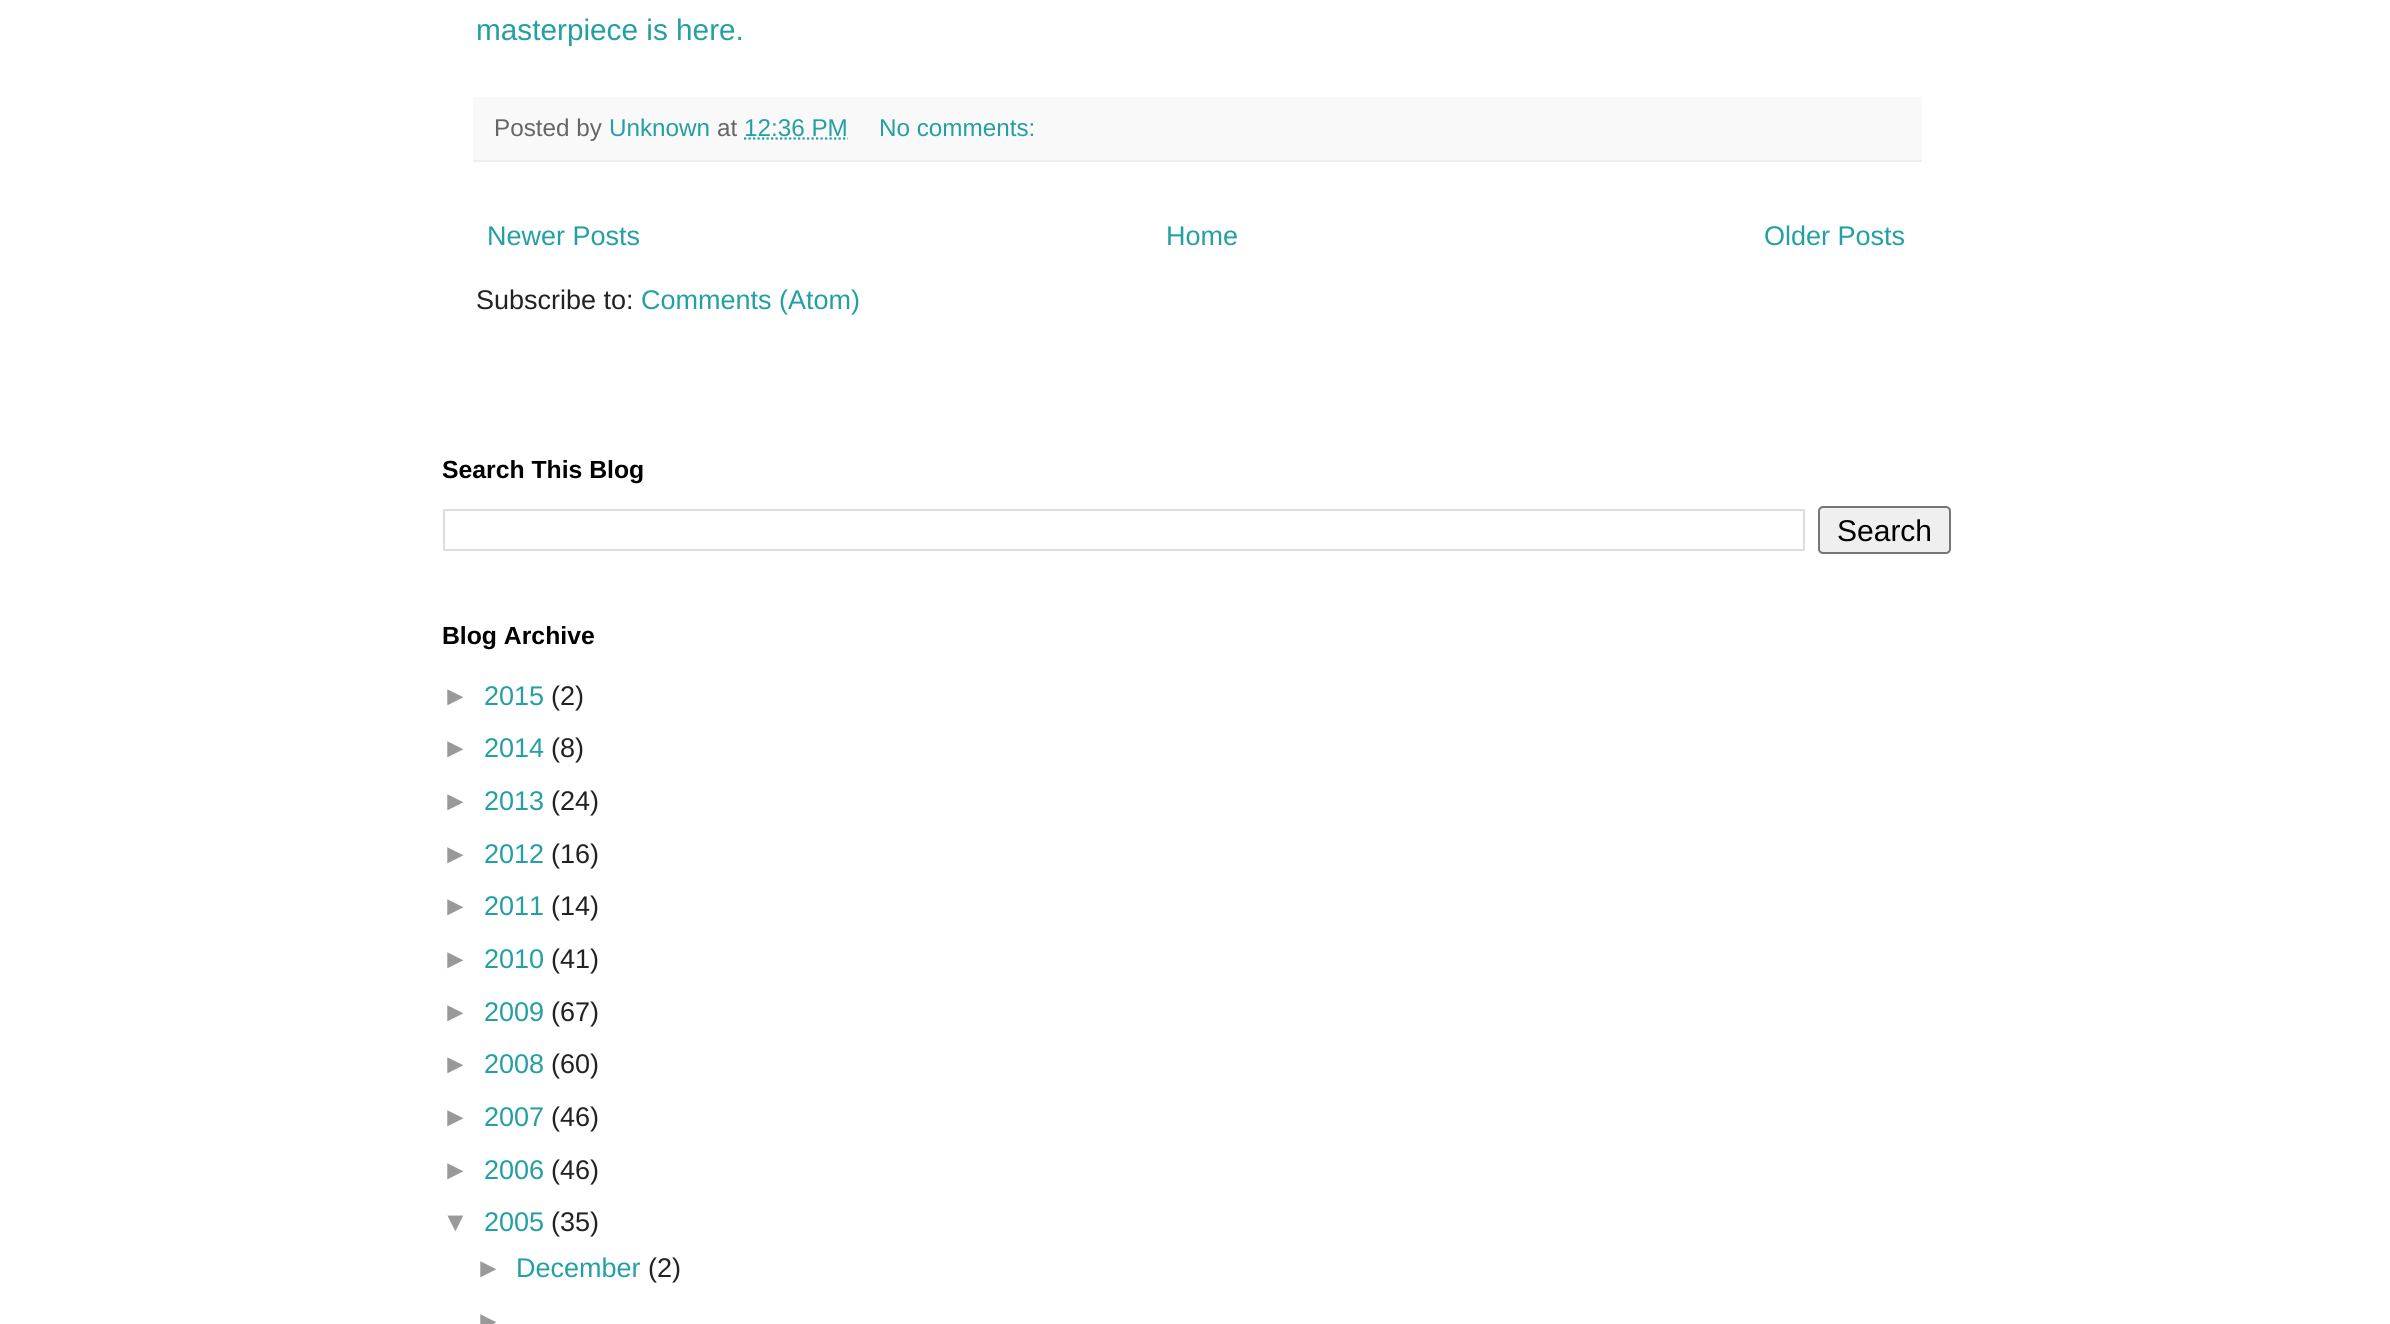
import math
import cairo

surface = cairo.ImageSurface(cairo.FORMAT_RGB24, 2390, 1324)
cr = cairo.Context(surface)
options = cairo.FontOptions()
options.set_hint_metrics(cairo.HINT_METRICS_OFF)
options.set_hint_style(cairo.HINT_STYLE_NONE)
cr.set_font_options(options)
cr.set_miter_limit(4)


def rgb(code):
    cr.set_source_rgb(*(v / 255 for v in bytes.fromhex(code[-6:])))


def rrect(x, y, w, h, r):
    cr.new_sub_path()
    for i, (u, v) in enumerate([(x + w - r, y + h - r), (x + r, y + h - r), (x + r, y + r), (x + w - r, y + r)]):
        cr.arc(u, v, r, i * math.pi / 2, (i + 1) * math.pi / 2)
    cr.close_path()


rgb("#ffffff")
cr.paint()
rgb("#f9f9f9")
cr.rectangle(473, 97, 1449, 63)
cr.fill()
rgb("#eeeeee")
cr.rectangle(473, 160, 1449, 2)
cr.fill()
cr.new_path()
cr.move_to(744, 138.5)
cr.line_to(848, 138.5)
rgb("#249fa3")
cr.set_line_width(2.2)
cr.set_dash([2.25, 2.25])
cr.stroke()
cr.rectangle(444, 510, 1360, 40)
rgb("#dddddd")
cr.set_line_width(2)
cr.set_dash([])
cr.stroke()
rgb("#efefef")
rrect(1819, 507, 131, 46, 4)
cr.fill_preserve()
rgb("#767676")
cr.stroke()
cr.select_font_face("Liberation Sans")
cr.set_font_size(29.75)
rgb("#249fa3")
cr.move_to(476, 40)
cr.show_text("masterpiece is here.")
cr.set_font_size(24.25)
rgb("#666666")
cr.move_to(494, 136)
cr.show_text("Posted by")
rgb("#249fa3")
cr.move_to(609, 136)
cr.show_text("Unknown")
rgb("#666666")
cr.move_to(717, 136)
cr.show_text("at")
rgb("#249fa3")
cr.move_to(744, 136)
cr.show_text("12:36 PM")
cr.move_to(879, 136)
cr.show_text("No comments:")
cr.set_font_size(27)
for x, y, s in [
    (487, 245, "Newer Posts"),
    (1166, 245, "Home"),
    (1764, 245, "Older Posts"),
]:
    cr.move_to(x, y)
    cr.show_text(s)
rgb("#222222")
cr.move_to(476, 309)
cr.show_text("Subscribe to:")
rgb("#249fa3")
cr.move_to(641, 309)
cr.show_text("Comments (Atom)")
cr.select_font_face("Liberation Sans", cairo.FONT_SLANT_NORMAL, cairo.FONT_WEIGHT_BOLD)
cr.set_font_size(24.75)
rgb("#000000")
cr.move_to(442, 478)
cr.show_text("Search This Blog")
cr.select_font_face("Liberation Sans")
cr.set_font_size(30)
cr.move_to(1837, 541)
cr.show_text("Search")
cr.select_font_face("Liberation Sans", cairo.FONT_SLANT_NORMAL, cairo.FONT_WEIGHT_BOLD)
cr.set_font_size(24.75)
cr.move_to(442, 644)
cr.show_text("Blog Archive")
cr.select_font_face("Liberation Sans")
cr.set_font_size(27)
rgb("#999999")
cr.move_to(442, 705)
cr.show_text("►")
rgb("#249fa3")
cr.move_to(484, 705)
cr.show_text("2015")
rgb("#222222")
cr.move_to(551, 705)
cr.show_text("(2)")
rgb("#999999")
cr.move_to(442, 757)
cr.show_text("►")
rgb("#249fa3")
cr.move_to(484, 757)
cr.show_text("2014")
rgb("#222222")
cr.move_to(551, 757)
cr.show_text("(8)")
rgb("#999999")
cr.move_to(442, 810)
cr.show_text("►")
rgb("#249fa3")
cr.move_to(484, 810)
cr.show_text("2013")
rgb("#222222")
cr.move_to(551, 810)
cr.show_text("(24)")
rgb("#999999")
cr.move_to(442, 863)
cr.show_text("►")
rgb("#249fa3")
cr.move_to(484, 863)
cr.show_text("2012")
rgb("#222222")
cr.move_to(551, 863)
cr.show_text("(16)")
rgb("#999999")
cr.move_to(442, 915)
cr.show_text("►")
rgb("#249fa3")
cr.move_to(484, 915)
cr.show_text("2011")
rgb("#222222")
cr.move_to(551, 915)
cr.show_text("(14)")
rgb("#999999")
cr.move_to(442, 968)
cr.show_text("►")
rgb("#249fa3")
cr.move_to(484, 968)
cr.show_text("2010")
rgb("#222222")
cr.move_to(551, 968)
cr.show_text("(41)")
rgb("#999999")
cr.move_to(442, 1021)
cr.show_text("►")
rgb("#249fa3")
cr.move_to(484, 1021)
cr.show_text("2009")
rgb("#222222")
cr.move_to(551, 1021)
cr.show_text("(67)")
rgb("#999999")
cr.move_to(442, 1073)
cr.show_text("►")
rgb("#249fa3")
cr.move_to(484, 1073)
cr.show_text("2008")
rgb("#222222")
cr.move_to(551, 1073)
cr.show_text("(60)")
rgb("#999999")
cr.move_to(442, 1126)
cr.show_text("►")
rgb("#249fa3")
cr.move_to(484, 1126)
cr.show_text("2007")
rgb("#222222")
cr.move_to(551, 1126)
cr.show_text("(46)")
rgb("#999999")
cr.move_to(442, 1179)
cr.show_text("►")
rgb("#249fa3")
cr.move_to(484, 1179)
cr.show_text("2006")
rgb("#222222")
cr.move_to(551, 1179)
cr.show_text("(46)")
rgb("#999999")
cr.move_to(442, 1231)
cr.show_text("▼")
rgb("#249fa3")
cr.move_to(484, 1231)
cr.show_text("2005")
rgb("#222222")
cr.move_to(551, 1231)
cr.show_text("(35)")
rgb("#999999")
cr.move_to(475, 1277)
cr.show_text("►")
rgb("#249fa3")
cr.move_to(516, 1277)
cr.show_text("December")
rgb("#222222")
cr.move_to(648, 1277)
cr.show_text("(2)")
rgb("#999999")
cr.move_to(475, 1330)
cr.show_text("►")
surface.write_to_png("page.png")
